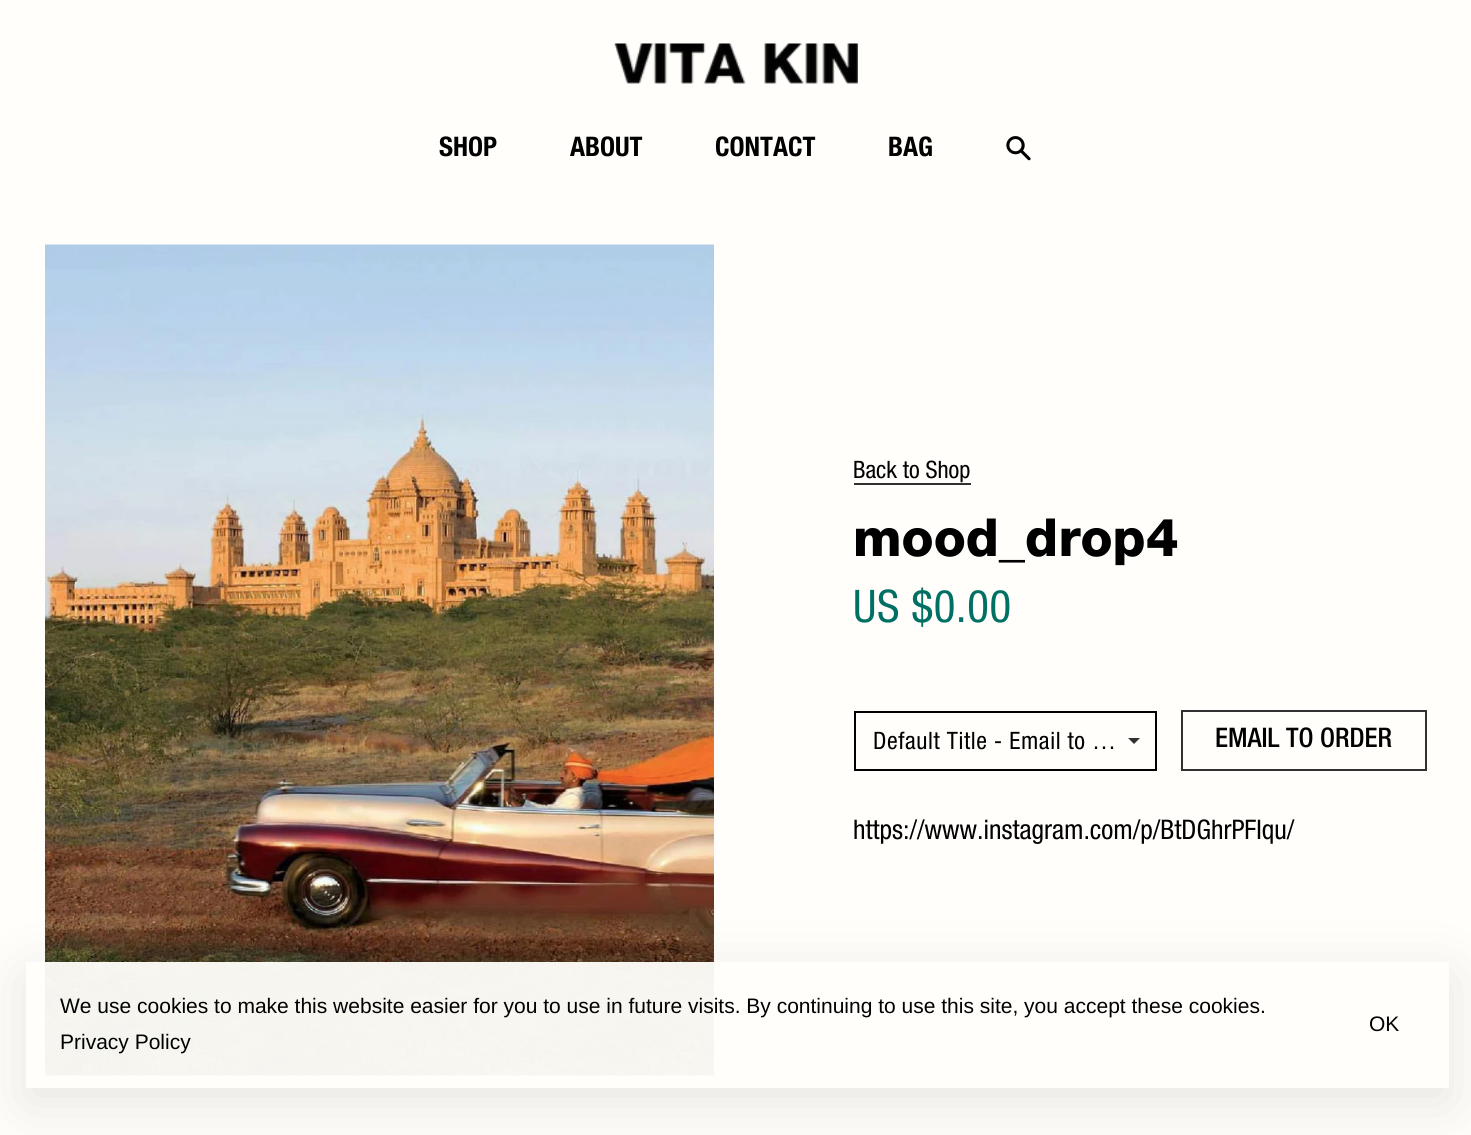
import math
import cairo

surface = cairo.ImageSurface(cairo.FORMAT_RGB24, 1471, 1135)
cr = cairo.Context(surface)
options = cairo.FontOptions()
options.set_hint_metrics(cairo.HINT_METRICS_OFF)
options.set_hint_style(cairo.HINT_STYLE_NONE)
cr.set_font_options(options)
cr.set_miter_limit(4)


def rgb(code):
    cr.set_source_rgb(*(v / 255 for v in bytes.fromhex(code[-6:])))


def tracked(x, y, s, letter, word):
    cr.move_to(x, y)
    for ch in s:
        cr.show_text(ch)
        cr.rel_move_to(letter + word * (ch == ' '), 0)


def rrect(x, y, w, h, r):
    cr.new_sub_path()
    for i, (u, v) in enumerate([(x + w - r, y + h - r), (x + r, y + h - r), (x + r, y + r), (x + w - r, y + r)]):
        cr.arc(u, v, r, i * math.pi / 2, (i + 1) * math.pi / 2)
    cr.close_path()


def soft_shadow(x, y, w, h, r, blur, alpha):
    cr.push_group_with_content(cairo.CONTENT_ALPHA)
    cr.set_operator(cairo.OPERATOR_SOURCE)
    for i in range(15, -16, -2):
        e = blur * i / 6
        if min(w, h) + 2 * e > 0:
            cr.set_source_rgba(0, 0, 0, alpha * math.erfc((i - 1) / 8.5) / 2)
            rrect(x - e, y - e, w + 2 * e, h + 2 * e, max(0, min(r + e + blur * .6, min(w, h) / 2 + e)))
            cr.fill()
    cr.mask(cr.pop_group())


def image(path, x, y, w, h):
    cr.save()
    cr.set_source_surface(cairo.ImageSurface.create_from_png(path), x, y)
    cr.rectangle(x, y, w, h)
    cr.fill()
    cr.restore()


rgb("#fffefa")
cr.paint()
image("img/1.png", 614, 43, 244, 41)
image("img/2.png", 1006, 136, 25, 25)
image("img/3.png", 45, 244, 669, 832)
rgb("#313131")
cr.rectangle(854, 483, 117, 2)
cr.fill()
cr.rectangle(855, 712, 301, 58)
rgb("#000000")
cr.stroke()
rgb("#313131")
cr.new_path()
cr.move_to(1128, 738)
cr.line_to(1140, 738)
cr.line_to(1134, 744)
cr.close_path()
cr.fill()
cr.rectangle(1182, 711, 244, 59)
cr.stroke()
cr.save()
cr.set_fill_rule(cairo.FILL_RULE_EVEN_ODD)
cr.new_path()
cr.move_to(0, 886)
cr.line_to(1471, 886)
cr.line_to(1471, 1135)
cr.line_to(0, 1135)
cr.close_path()
cr.move_to(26, 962)
cr.line_to(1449, 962)
cr.line_to(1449, 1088)
cr.line_to(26, 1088)
cr.close_path()
cr.clip()
rgb("#000000")
soft_shadow(26, 977, 1423, 126, 0, 30, 0.1)
cr.restore()
cr.set_source_rgba(1, 0.996, 0.98, 0.95)
cr.rectangle(26, 962, 1423, 126)
cr.fill()
cr.select_font_face("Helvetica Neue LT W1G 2", cairo.FONT_SLANT_NORMAL, cairo.FONT_WEIGHT_BOLD)
cr.set_font_size(27)
rgb("#000000")
for x, y, s in [
    (439, 156, "SHOP"),
    (570, 156, "ABOUT"),
    (715, 156, "CONTACT"),
    (888, 156, "BAG"),
]:
    cr.move_to(x, y)
    cr.show_text(s)
cr.select_font_face("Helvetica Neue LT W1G")
cr.set_font_size(24)
cr.move_to(853, 478)
cr.show_text("Back to Shop")
cr.select_font_face("Helvetica Neue LT W1G", cairo.FONT_SLANT_NORMAL, cairo.FONT_WEIGHT_BOLD)
cr.set_font_size(52.5)
cr.move_to(853, 556)
cr.show_text("mood_drop4")
cr.select_font_face("Helvetica Neue LT W1G")
cr.set_font_size(45)
rgb("#007065")
tracked(853, 622, "US $0.00", 0.6, 0)
cr.set_font_size(24)
rgb("#000000")
tracked(873, 749, "Default Title - Email to …", 0.6, 0)
cr.select_font_face("Helvetica Neue LT W1G Medium")
cr.set_font_size(27)
cr.move_to(1215, 747)
cr.show_text("EMAIL TO ORDER")
cr.select_font_face("Helvetica Neue LT W1G")
cr.move_to(853, 839)
cr.show_text("https://www.instagram.com/p/BtDGhrPFIqu/")
cr.select_font_face("Liberation Sans")
cr.set_font_size(21)
for x, y, s in [
    (60, 1013, "We use cookies to make this website easier for you to use in future visits. By continuing to use this site, you accept these cookies."),
    (60, 1049, "Privacy Policy"),
    (1369, 1031, "OK"),
]:
    cr.move_to(x, y)
    cr.show_text(s)
surface.write_to_png("page.png")
